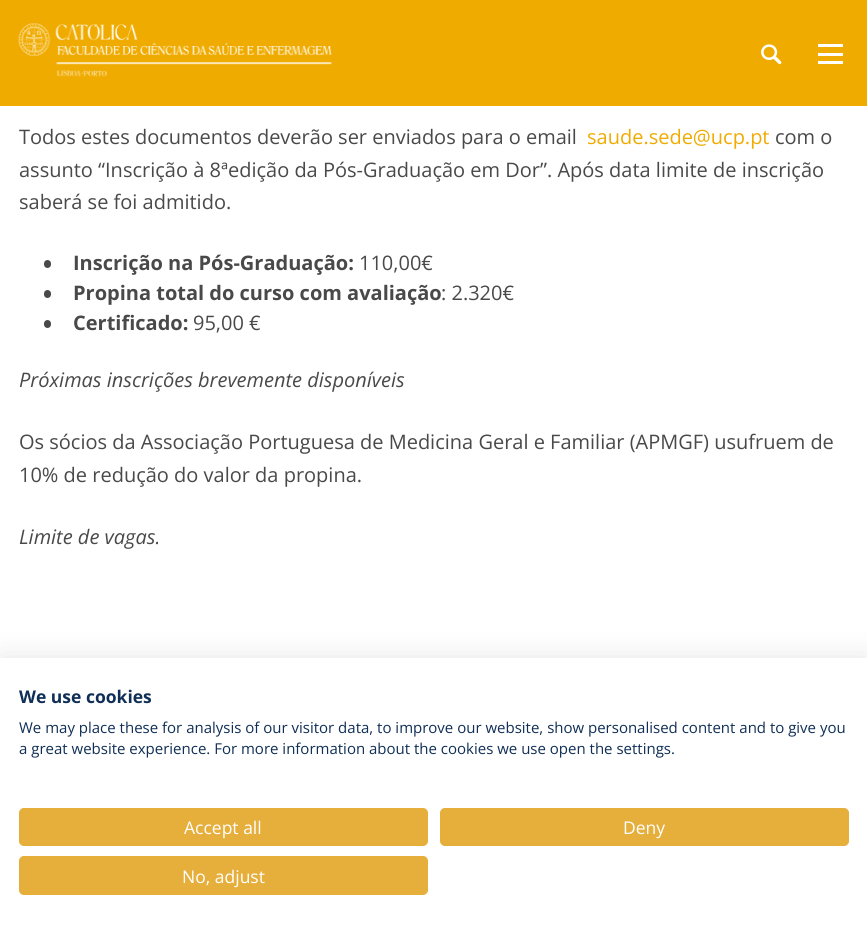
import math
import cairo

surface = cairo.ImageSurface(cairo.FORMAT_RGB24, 867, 928)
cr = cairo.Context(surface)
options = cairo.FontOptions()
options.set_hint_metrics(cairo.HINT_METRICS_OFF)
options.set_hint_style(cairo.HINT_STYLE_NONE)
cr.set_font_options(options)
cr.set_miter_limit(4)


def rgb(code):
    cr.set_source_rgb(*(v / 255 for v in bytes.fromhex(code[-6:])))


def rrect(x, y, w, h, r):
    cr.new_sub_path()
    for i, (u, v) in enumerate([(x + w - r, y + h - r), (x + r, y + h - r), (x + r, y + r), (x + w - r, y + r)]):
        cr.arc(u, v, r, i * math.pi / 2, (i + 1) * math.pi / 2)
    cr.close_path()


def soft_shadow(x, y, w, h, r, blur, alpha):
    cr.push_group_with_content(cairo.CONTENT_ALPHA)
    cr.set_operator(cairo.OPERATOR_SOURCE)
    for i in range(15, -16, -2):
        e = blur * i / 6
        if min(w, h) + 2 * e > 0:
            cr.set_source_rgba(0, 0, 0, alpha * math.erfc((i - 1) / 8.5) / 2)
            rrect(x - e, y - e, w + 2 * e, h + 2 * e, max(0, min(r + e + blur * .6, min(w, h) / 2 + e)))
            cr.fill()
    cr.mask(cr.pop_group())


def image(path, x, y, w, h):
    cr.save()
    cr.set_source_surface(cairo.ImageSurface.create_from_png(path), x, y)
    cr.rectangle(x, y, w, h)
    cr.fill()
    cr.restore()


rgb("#ffffff")
cr.paint()
rgb("#f0ab00")
cr.rectangle(0, 0, 867, 106)
cr.fill()
image("img/1.png", 18, 23, 314, 54)
image("img/2.png", 761, 44, 21, 21)
for x, y, w, h, color in [
    (818, 44, 25, 3, "#ffffff"),
    (818, 53, 25, 3, "#ffffff"),
    (818, 61, 25, 3, "#ffffff"),
]:
    rgb(color)
    cr.rectangle(x, y, w, h)
    cr.fill()
rgb("#494949")
rrect(44, 260, 7, 8, 3.5)
cr.fill()
rrect(44, 290, 7, 8, 3.5)
cr.fill()
rrect(44, 320, 7, 8, 3.5)
cr.fill()
rgb("#000000")
soft_shadow(0, 658, 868, 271, 0, 15, 0.1)
rgb("#ffffff")
cr.rectangle(0, 658, 867, 270)
cr.fill()
rgb("#e6ae3b")
rrect(19.5, 808.5, 408, 37, 4.5)
cr.fill_preserve()
cr.set_line_width(1)
cr.stroke()
rrect(440.5, 808.5, 408, 37, 4.5)
cr.fill_preserve()
cr.stroke()
rrect(19.5, 856.5, 408, 38, 4.5)
cr.fill_preserve()
cr.stroke()
cr.select_font_face("Open Sans")
cr.set_font_size(20)
rgb("#494949")
cr.move_to(19, 144)
cr.show_text("Todos estes documentos deverão ser enviados para o email")
rgb("#f0ab00")
cr.move_to(587, 144)
cr.show_text("saude.sede@ucp.pt")
rgb("#494949")
for x, y, s in [
    (775, 144, "com o"),
    (19, 177, "assunto “Inscrição à 8ªedição da Pós-Graduação em Dor”. Após data limite de inscrição"),
    (19, 209, "saberá se foi admitido."),
]:
    cr.move_to(x, y)
    cr.show_text(s)
cr.select_font_face("Open Sans", cairo.FONT_SLANT_NORMAL, cairo.FONT_WEIGHT_BOLD)
cr.move_to(73, 270)
cr.show_text("Inscrição na Pós-Graduação:")
cr.select_font_face("Open Sans")
cr.move_to(359, 270)
cr.show_text("110,00€")
cr.select_font_face("Open Sans", cairo.FONT_SLANT_NORMAL, cairo.FONT_WEIGHT_BOLD)
cr.move_to(73, 300)
cr.show_text("Propina total do curso com avaliação")
cr.select_font_face("Open Sans")
cr.move_to(441, 300)
cr.show_text(": 2.320€")
cr.select_font_face("Open Sans", cairo.FONT_SLANT_NORMAL, cairo.FONT_WEIGHT_BOLD)
cr.move_to(73, 330)
cr.show_text("Certificado:")
cr.select_font_face("Open Sans")
cr.move_to(193, 330)
cr.show_text("95,00 €")
cr.select_font_face("Open Sans", cairo.FONT_SLANT_ITALIC)
cr.move_to(19, 387)
cr.show_text("Próximas inscrições brevemente disponíveis")
cr.select_font_face("Open Sans")
cr.move_to(19, 449)
cr.show_text("Os sócios da Associação Portuguesa de Medicina Geral e Familiar (APMGF) usufruem de")
cr.move_to(19, 482)
cr.show_text("10% de redução do valor da propina.")
cr.select_font_face("Open Sans", cairo.FONT_SLANT_ITALIC)
cr.move_to(19, 544)
cr.show_text("Limite de vagas.")
cr.select_font_face("Open Sans", cairo.FONT_SLANT_NORMAL, cairo.FONT_WEIGHT_BOLD)
cr.set_font_size(17.5)
rgb("#102f56")
cr.move_to(19, 703)
cr.show_text("We use cookies")
cr.select_font_face("Open Sans")
cr.set_font_size(15)
cr.move_to(19, 733)
cr.show_text("We may place these for analysis of our visitor data, to improve our website, show personalised content and to give you")
cr.move_to(19, 754)
cr.show_text("a great website experience. For more information about the cookies we use open the settings.")
cr.set_font_size(17.5)
rgb("#ffffff")
for x, y, s in [
    (184, 834, "Accept all"),
    (623, 834, "Deny"),
    (182, 883, "No, adjust"),
]:
    cr.move_to(x, y)
    cr.show_text(s)
surface.write_to_png("page.png")
